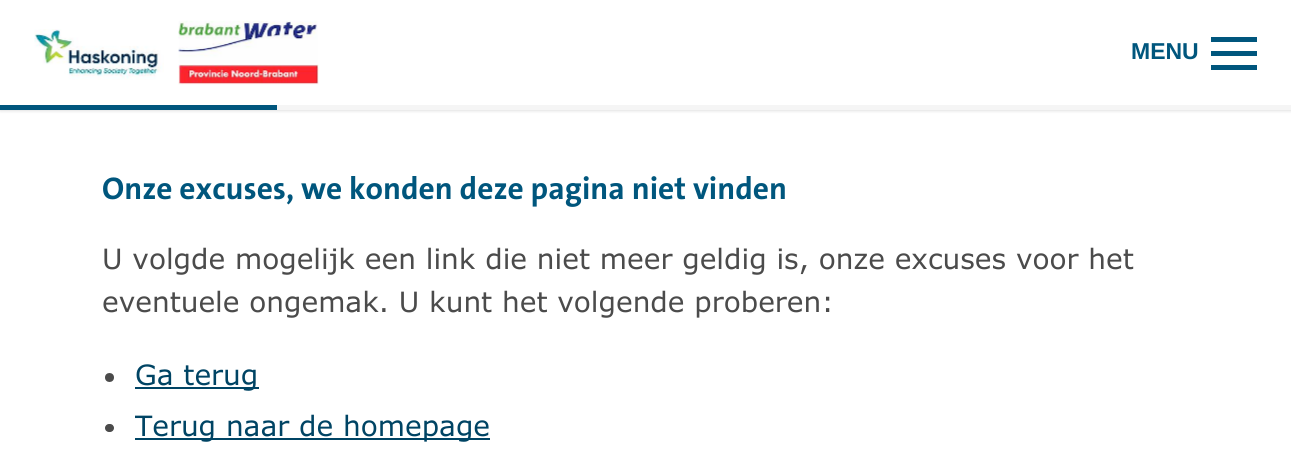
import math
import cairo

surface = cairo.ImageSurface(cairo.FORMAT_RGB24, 1291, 466)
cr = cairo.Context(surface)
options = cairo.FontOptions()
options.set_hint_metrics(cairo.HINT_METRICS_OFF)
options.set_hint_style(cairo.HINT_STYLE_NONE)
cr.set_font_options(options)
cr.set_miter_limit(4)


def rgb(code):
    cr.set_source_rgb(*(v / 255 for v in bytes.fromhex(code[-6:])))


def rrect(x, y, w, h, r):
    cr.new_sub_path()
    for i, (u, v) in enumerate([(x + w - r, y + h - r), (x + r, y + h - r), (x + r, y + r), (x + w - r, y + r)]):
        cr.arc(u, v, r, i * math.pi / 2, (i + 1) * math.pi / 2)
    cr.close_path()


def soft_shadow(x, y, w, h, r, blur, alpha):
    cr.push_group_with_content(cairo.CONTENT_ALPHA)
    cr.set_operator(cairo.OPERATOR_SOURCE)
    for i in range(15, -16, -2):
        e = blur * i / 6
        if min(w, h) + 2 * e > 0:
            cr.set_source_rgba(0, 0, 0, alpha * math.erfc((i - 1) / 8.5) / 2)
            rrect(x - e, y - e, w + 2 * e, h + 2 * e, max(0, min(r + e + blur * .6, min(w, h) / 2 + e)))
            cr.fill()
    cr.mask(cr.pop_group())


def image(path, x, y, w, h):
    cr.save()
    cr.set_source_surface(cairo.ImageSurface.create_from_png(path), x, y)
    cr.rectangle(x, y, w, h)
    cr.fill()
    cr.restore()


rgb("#ffffff")
cr.paint()
rgb("#000000")
soft_shadow(0, 0, 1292, 110, 0, 2, 0.2)
rgb("#ffffff")
cr.rectangle(0, 0, 1291, 105)
cr.fill()
image("img/1.png", 34, 29, 130, 51)
image("img/2.png", 178, 20, 141, 65)
for x, y, w, h, color in [
    (1211, 37, 46, 5, "#00567d"),
    (1211, 51, 46, 5, "#00567d"),
    (1211, 65, 46, 5, "#00567d"),
    (277, 105, 1014, 5, "#f5f5f5"),
    (0, 105, 277, 5, "#00567d"),
]:
    rgb(color)
    cr.rectangle(x, y, w, h)
    cr.fill()
rgb("#4b4b4b")
cr.arc(109.5, 377.5, 4.5, 0, 2 * math.pi)
cr.fill()
rgb("#004464")
cr.rectangle(135, 387, 124, 2)
cr.fill()
rgb("#4b4b4b")
rrect(105, 424, 9, 8, 4)
cr.fill()
rgb("#004464")
cr.rectangle(135, 438, 355, 2)
cr.fill()
cr.select_font_face("Liberation Sans", cairo.FONT_SLANT_NORMAL, cairo.FONT_WEIGHT_BOLD)
cr.set_font_size(23)
rgb("#00567d")
cr.move_to(1131, 59)
cr.show_text("MENU")
cr.select_font_face("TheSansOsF", cairo.FONT_SLANT_NORMAL, cairo.FONT_WEIGHT_BOLD)
cr.set_font_size(31.5)
cr.move_to(102, 199)
cr.show_text("Onze excuses, we konden deze pagina niet vinden")
cr.select_font_face("Verdana")
cr.set_font_size(28)
rgb("#4b4b4b")
cr.move_to(102, 269)
cr.show_text("U volgde mogelijk een link die niet meer geldig is, onze excuses voor het")
cr.move_to(102, 312)
cr.show_text("eventuele ongemak. U kunt het volgende proberen:")
rgb("#004464")
cr.move_to(135, 385)
cr.show_text("Ga terug")
cr.move_to(135, 436)
cr.show_text("Terug naar de homepage")
surface.write_to_png("page.png")
